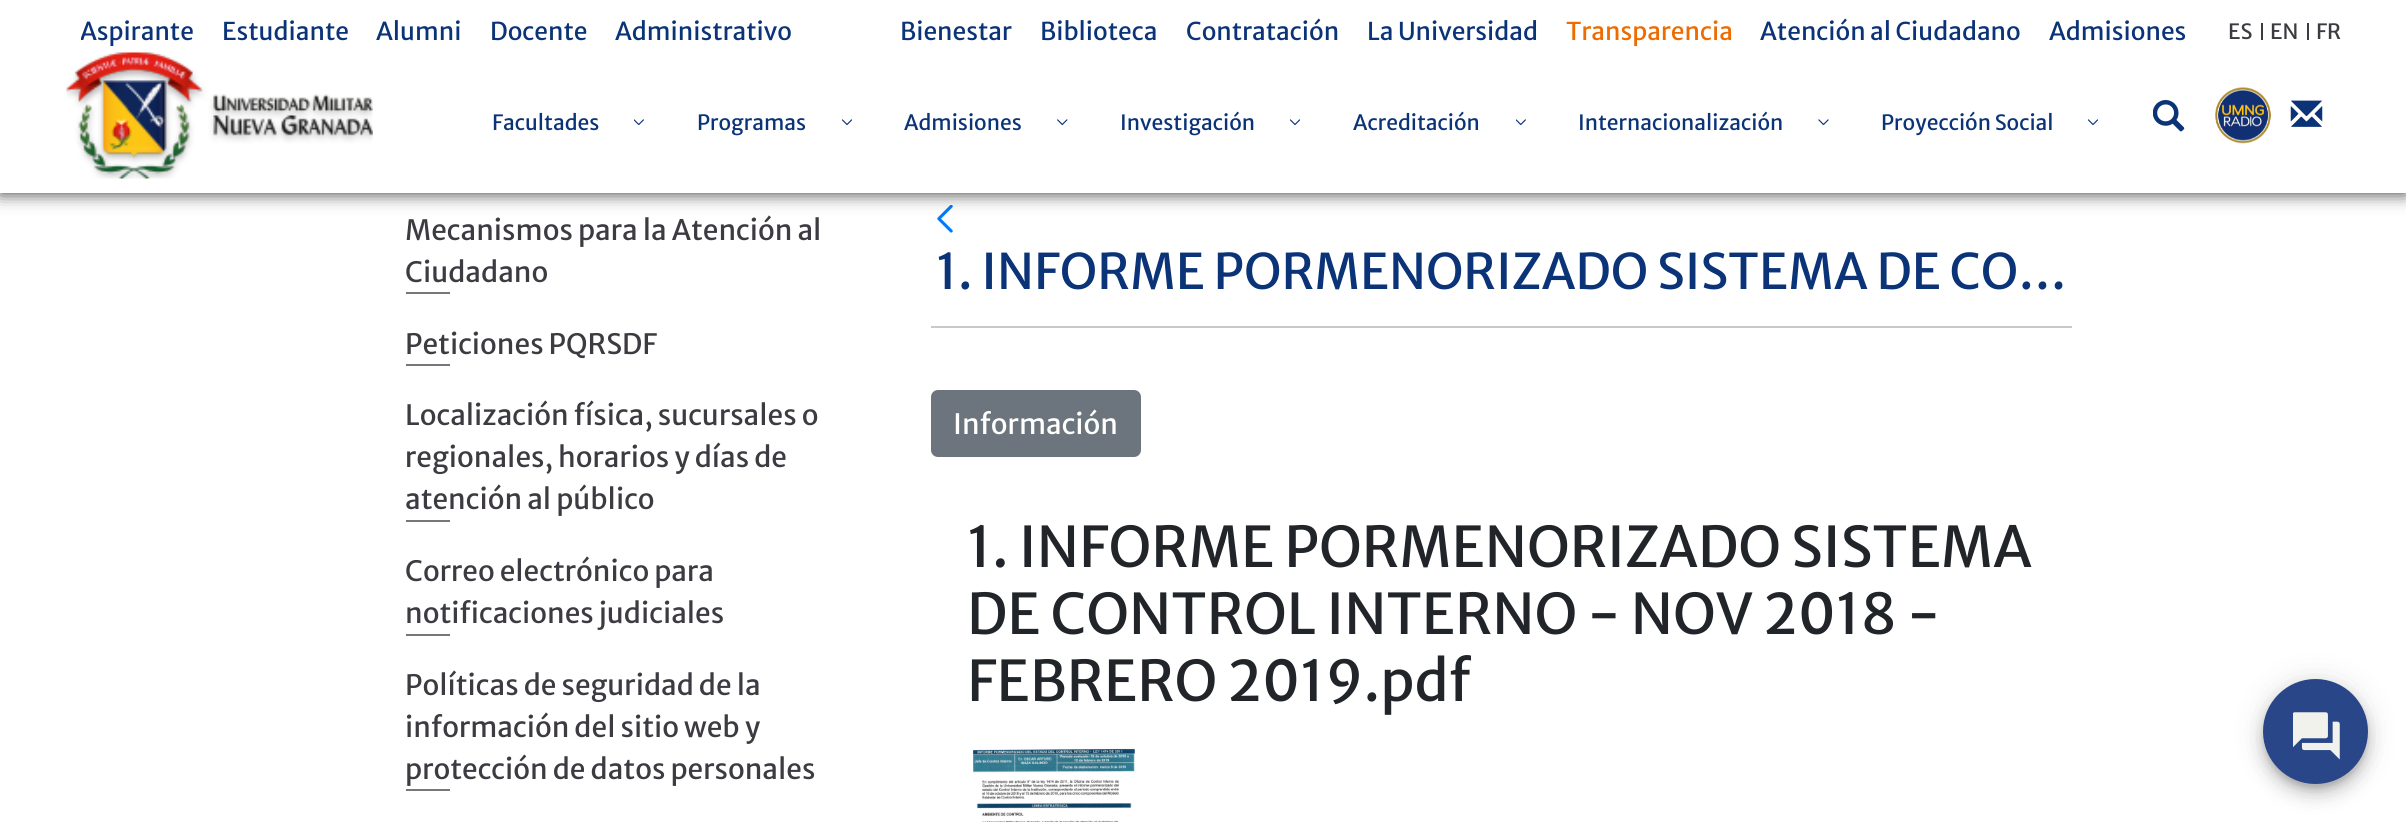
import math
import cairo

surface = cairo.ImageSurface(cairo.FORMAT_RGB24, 2406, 822)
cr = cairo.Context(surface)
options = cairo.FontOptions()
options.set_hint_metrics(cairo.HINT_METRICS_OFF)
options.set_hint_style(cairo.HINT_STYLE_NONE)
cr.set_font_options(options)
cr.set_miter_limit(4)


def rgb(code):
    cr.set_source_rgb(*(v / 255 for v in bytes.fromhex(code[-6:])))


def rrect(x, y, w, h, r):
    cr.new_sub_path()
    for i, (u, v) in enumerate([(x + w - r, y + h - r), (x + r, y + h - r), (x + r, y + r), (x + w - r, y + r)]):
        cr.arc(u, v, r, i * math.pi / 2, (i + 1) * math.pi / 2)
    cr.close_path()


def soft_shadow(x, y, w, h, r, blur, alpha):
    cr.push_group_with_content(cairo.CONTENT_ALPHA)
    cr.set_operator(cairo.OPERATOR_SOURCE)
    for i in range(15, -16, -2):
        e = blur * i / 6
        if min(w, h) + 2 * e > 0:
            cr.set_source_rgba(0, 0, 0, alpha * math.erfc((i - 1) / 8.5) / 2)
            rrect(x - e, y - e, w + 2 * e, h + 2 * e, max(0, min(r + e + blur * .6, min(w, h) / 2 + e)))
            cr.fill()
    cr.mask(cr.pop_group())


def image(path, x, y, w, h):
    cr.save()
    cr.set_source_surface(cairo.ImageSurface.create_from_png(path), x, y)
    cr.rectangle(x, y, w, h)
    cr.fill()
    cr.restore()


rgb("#ffffff")
cr.paint()
image("img/9.png", 937, 205, 16, 28)
rgb("#000000")
soft_shadow(0, 0, 2406, 193, 0, 9, 0.8)
for x, y, w, h, color in [
    (0, 0, 2406, 193, "#ffffff"),
    (2261, 23, 2, 17, "#3d3b41"),
    (2307, 23, 2, 17, "#3d3b41"),
]:
    rgb(color)
    cr.rectangle(x, y, w, h)
    cr.fill()
image("img/1.png", 66, 52, 307, 127)
image("img/2.png", 634, 119, 10, 7)
image("img/3.png", 842, 119, 10, 6)
image("img/4.png", 1057, 119, 11, 7)
image("img/3.png", 1290, 119, 10, 6)
image("img/2.png", 1516, 119, 10, 7)
image("img/5.png", 1818, 119, 11, 7)
image("img/3.png", 2088, 119, 10, 6)
image("img/6.png", 2153, 100, 32, 32)
image("img/7.png", 2215, 87, 56, 57)
image("img/8.png", 2290, 100, 33, 27)
for x, y, w, h, color in [
    (406, 292, 44, 2, "#777679"),
    (406, 364, 44, 2, "#777679"),
    (406, 520, 44, 2, "#777679"),
    (406, 634, 44, 2, "#777679"),
    (406, 789, 44, 2, "#777679"),
    (931, 326, 1141, 2, "#c8c9ca"),
]:
    rgb(color)
    cr.rectangle(x, y, w, h)
    cr.fill()
rgb("#6c757d")
rrect(932, 391, 208, 65, 6)
cr.fill_preserve()
cr.stroke()
image("img/10.png", 972, 748, 163, 74)
rgb("#000000")
soft_shadow(2263, 681, 105, 105, 52.5, 16, 0.12)
soft_shadow(2263, 690, 105, 105, 52.5, 9, 0.14)
soft_shadow(2265, 686, 101, 102, 50.5, 4.5, 0.2)
rgb("#284688")
cr.arc(2315.5, 731.5, 52.5, 0, 2 * math.pi)
cr.fill()
image("img/11.png", 2293, 712, 47, 48)
cr.save()
cr.rectangle(81, 14, 113, 37)
cr.clip()
cr.select_font_face("Merriweather Sans")
cr.set_font_size(24.5)
rgb("#0b3377")
cr.move_to(80, 40)
cr.show_text("Aspirante")
cr.restore()
cr.select_font_face("Merriweather Sans")
cr.set_font_size(24.5)
rgb("#0b3377")
for x, y, s in [
    (222, 40, "Estudiante"),
    (376, 40, "Alumni"),
    (490, 40, "Docente"),
    (615, 40, "Administrativo"),
    (900, 40, "Bienestar"),
    (1040, 40, "Biblioteca"),
    (1186, 40, "Contratación"),
    (1367, 40, "La Universidad"),
]:
    cr.move_to(x, y)
    cr.show_text(s)
rgb("#ed6b00")
cr.move_to(1566, 40)
cr.show_text("Transparencia")
rgb("#0b3377")
cr.move_to(1760, 40)
cr.show_text("Atención al Ciudadano")
cr.move_to(2049, 40)
cr.show_text("Admisiones")
cr.set_font_size(21)
rgb("#3d3b41")
for x, y, s in [
    (2228, 39, "ES"),
    (2270, 39, "EN"),
    (2316, 39, "FR"),
]:
    cr.move_to(x, y)
    cr.show_text(s)
rgb("#0b3377")
for x, y, s in [
    (492, 130, "Facultades"),
    (697, 130, "Programas"),
    (904, 130, "Admisiones"),
    (1120, 130, "Investigación"),
    (1353, 130, "Acreditación"),
    (1578, 130, "Internacionalización"),
    (1881, 130, "Proyección Social"),
]:
    cr.move_to(x, y)
    cr.show_text(s)
cr.set_font_size(28)
rgb("#3d3b41")
for x, y, s in [
    (405, 240, "Mecanismos para la Atención al"),
    (405, 282, "Ciudadano"),
    (405, 354, "Peticiones PQRSDF"),
    (405, 425, "Localización física, sucursales o"),
    (405, 467, "regionales, horarios y días de"),
    (405, 509, "atención al público"),
    (405, 581, "Correo electrónico para"),
    (405, 623, "notificaciones judiciales"),
    (405, 695, "Políticas de seguridad de la"),
    (405, 737, "información del sitio web y"),
    (405, 779, "protección de datos personales"),
]:
    cr.move_to(x, y)
    cr.show_text(s)
cr.set_font_size(49)
rgb("#0b3377")
cr.move_to(936, 289)
cr.show_text("1. INFORME PORMENORIZADO SISTEMA DE CO…")
cr.set_font_size(28)
rgb("#ffffff")
cr.move_to(953, 434)
cr.show_text("Información")
cr.set_font_size(56)
rgb("#212529")
for x, y, s in [
    (967, 567, "1. INFORME PORMENORIZADO SISTEMA"),
    (967, 634, "DE CONTROL INTERNO - NOV 2018 -"),
    (967, 701, "FEBRERO 2019.pdf"),
]:
    cr.move_to(x, y)
    cr.show_text(s)
surface.write_to_png("page.png")
